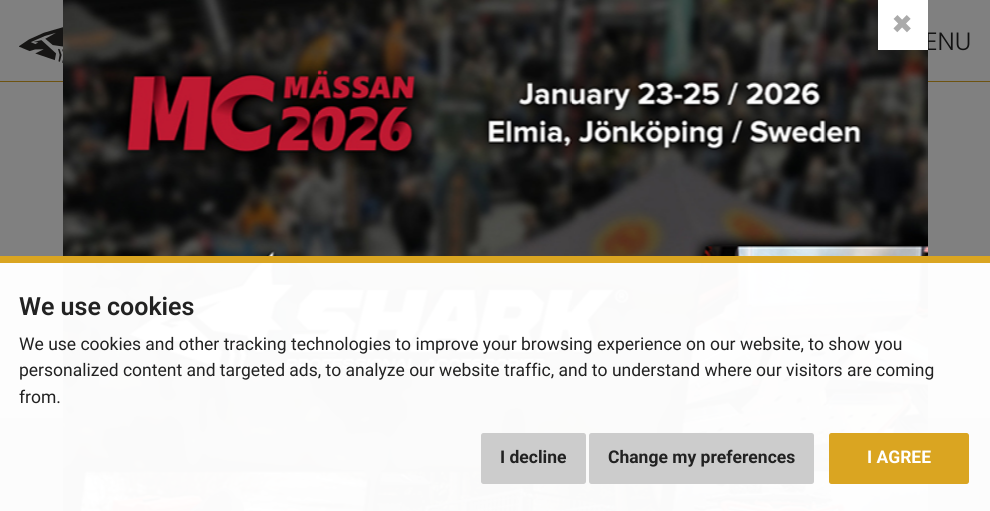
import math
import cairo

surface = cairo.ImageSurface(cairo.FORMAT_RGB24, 990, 511)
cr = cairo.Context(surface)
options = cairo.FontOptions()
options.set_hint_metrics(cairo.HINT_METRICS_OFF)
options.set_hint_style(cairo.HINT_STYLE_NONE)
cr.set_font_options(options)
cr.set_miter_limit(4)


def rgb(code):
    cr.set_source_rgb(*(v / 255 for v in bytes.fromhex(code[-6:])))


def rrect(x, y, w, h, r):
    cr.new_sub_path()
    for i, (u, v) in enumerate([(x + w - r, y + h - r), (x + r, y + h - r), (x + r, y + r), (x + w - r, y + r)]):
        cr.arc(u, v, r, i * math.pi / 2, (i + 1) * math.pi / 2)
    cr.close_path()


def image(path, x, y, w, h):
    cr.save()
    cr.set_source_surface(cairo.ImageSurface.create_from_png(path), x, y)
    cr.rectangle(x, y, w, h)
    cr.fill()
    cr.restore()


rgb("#808080")
cr.paint()
rgb("#6d5311")
cr.rectangle(0, 81, 990, 1)
cr.fill()
image("img/2.png", 19, 27, 44, 36)
image("img/3.png", 0, 418, 990, 93)
cr.select_font_face("Poppins Light")
cr.set_font_size(25)
rgb("#111111")
cr.move_to(925, 50)
cr.show_text("ENU")
image("img/1.png", 63, 0, 865, 511)
rgb("#ffffff")
cr.rectangle(878, 0, 50, 50)
cr.fill()
cr.select_font_face("Poppins", cairo.FONT_SLANT_NORMAL, cairo.FONT_WEIGHT_BOLD)
cr.set_font_size(35)
rgb("#aaaaaa")
cr.move_to(891, 36)
cr.show_text("×")
cr.set_source_rgba(1, 1, 1, 0.98)
cr.rectangle(0, 263, 990, 248)
cr.fill()
rgb("#daa521")
cr.rectangle(0, 256, 990, 7)
cr.fill()
cr.select_font_face("Roboto SemiBold")
cr.set_font_size(25)
rgb("#222222")
cr.move_to(19, 315)
cr.show_text("We use cookies")
cr.select_font_face("Roboto")
cr.set_font_size(17.5)
for x, y, s in [
    (19, 350, "We use cookies and other tracking technologies to improve your browsing experience on our website, to show you"),
    (19, 376, "personalized content and targeted ads, to analyze our website traffic, and to understand where our visitors are coming"),
    (19, 403, "from."),
]:
    cr.move_to(x, y)
    cr.show_text(s)
rgb("#cccccc")
rrect(481, 433, 105, 51, 2.5)
cr.fill()
cr.select_font_face("Roboto", cairo.FONT_SLANT_NORMAL, cairo.FONT_WEIGHT_BOLD)
rgb("#222222")
cr.move_to(500, 463)
cr.show_text("I decline")
rgb("#cccccc")
rrect(589, 433, 225, 51, 2.5)
cr.fill()
rgb("#222222")
cr.move_to(608, 463)
cr.show_text("Change my preferences")
rgb("#daa521")
rrect(829, 433, 140, 51, 2.5)
cr.fill()
rgb("#ffffff")
cr.move_to(867, 463)
cr.show_text("I AGREE")
surface.write_to_png("page.png")
